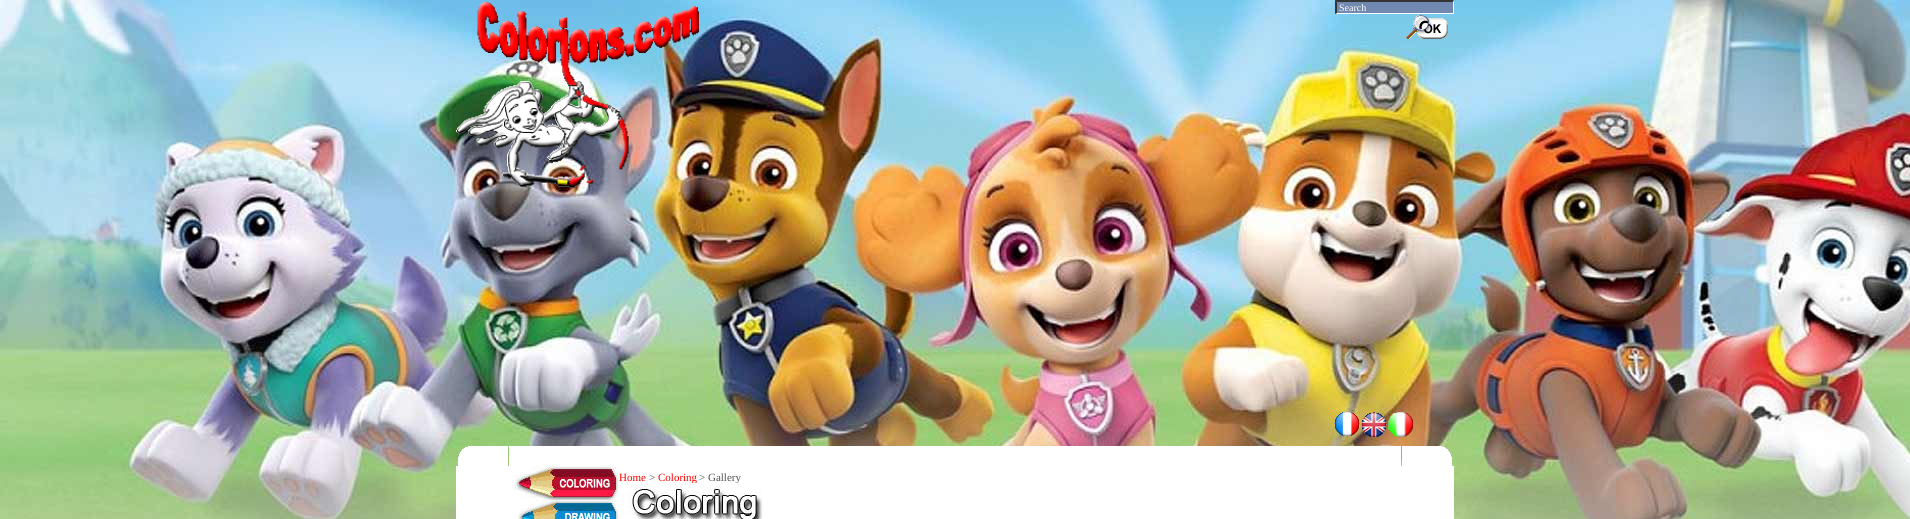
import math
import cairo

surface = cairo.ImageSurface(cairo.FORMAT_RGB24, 1910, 519)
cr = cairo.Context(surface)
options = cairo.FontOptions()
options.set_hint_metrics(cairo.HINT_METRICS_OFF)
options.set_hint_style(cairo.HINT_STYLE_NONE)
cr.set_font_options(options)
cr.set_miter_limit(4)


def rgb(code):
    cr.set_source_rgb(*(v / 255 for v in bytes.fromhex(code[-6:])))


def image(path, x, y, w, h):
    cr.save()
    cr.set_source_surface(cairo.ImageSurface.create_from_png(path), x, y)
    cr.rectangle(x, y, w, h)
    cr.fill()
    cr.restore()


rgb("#ffffff")
cr.paint()
image("img/1.png", 0, 0, 1910, 519)
image("img/2.png", 456, 2, 243, 186)
rgb("#7189b0")
cr.rectangle(1335, 0, 119, 14)
cr.fill()
rgb("#353535")
cr.new_path()
cr.move_to(1335, 0)
cr.line_to(1454, 0)
cr.line_to(1453, 2)
cr.line_to(1337, 2)
cr.close_path()
cr.fill()
rgb("#ffffff")
cr.new_path()
cr.move_to(1454, 0)
cr.line_to(1454, 14)
cr.line_to(1453, 13)
cr.line_to(1453, 2)
cr.close_path()
cr.fill()
cr.new_path()
cr.move_to(1454, 14)
cr.line_to(1335, 14)
cr.line_to(1337, 13)
cr.line_to(1453, 13)
cr.close_path()
cr.fill()
rgb("#353535")
cr.new_path()
cr.move_to(1335, 14)
cr.line_to(1335, 0)
cr.line_to(1337, 2)
cr.line_to(1337, 13)
cr.close_path()
cr.fill()
image("img/3.png", 1406, 15, 42, 24)
image("img/4.png", 1334, 411, 26, 26)
image("img/5.png", 1361, 412, 26, 26)
image("img/6.png", 1388, 412, 25, 25)
image("img/7.png", 458, 446, 50, 20)
rgb("#ffffff")
cr.rectangle(509, 446, 892, 20)
cr.fill()
image("img/8.png", 1402, 446, 50, 20)
cr.rectangle(456, 466, 998, 53)
cr.fill()
image("img/9.png", 512, 466, 107, 34)
image("img/10.png", 518, 500, 101, 19)
cr.select_font_face("Liberation Serif")
cr.set_font_size(10)
cr.move_to(1339, 11)
cr.show_text("Search")
cr.set_font_size(11)
rgb("#ff0000")
cr.move_to(619, 481)
cr.show_text("Home")
rgb("#505050")
cr.move_to(649, 481)
cr.show_text(">")
rgb("#ff0000")
cr.move_to(658, 481)
cr.show_text("Coloring")
rgb("#505050")
cr.move_to(699, 481)
cr.show_text("> Gallery")
image("img/11.png", 627, 483, 136, 36)
surface.write_to_png("page.png")
